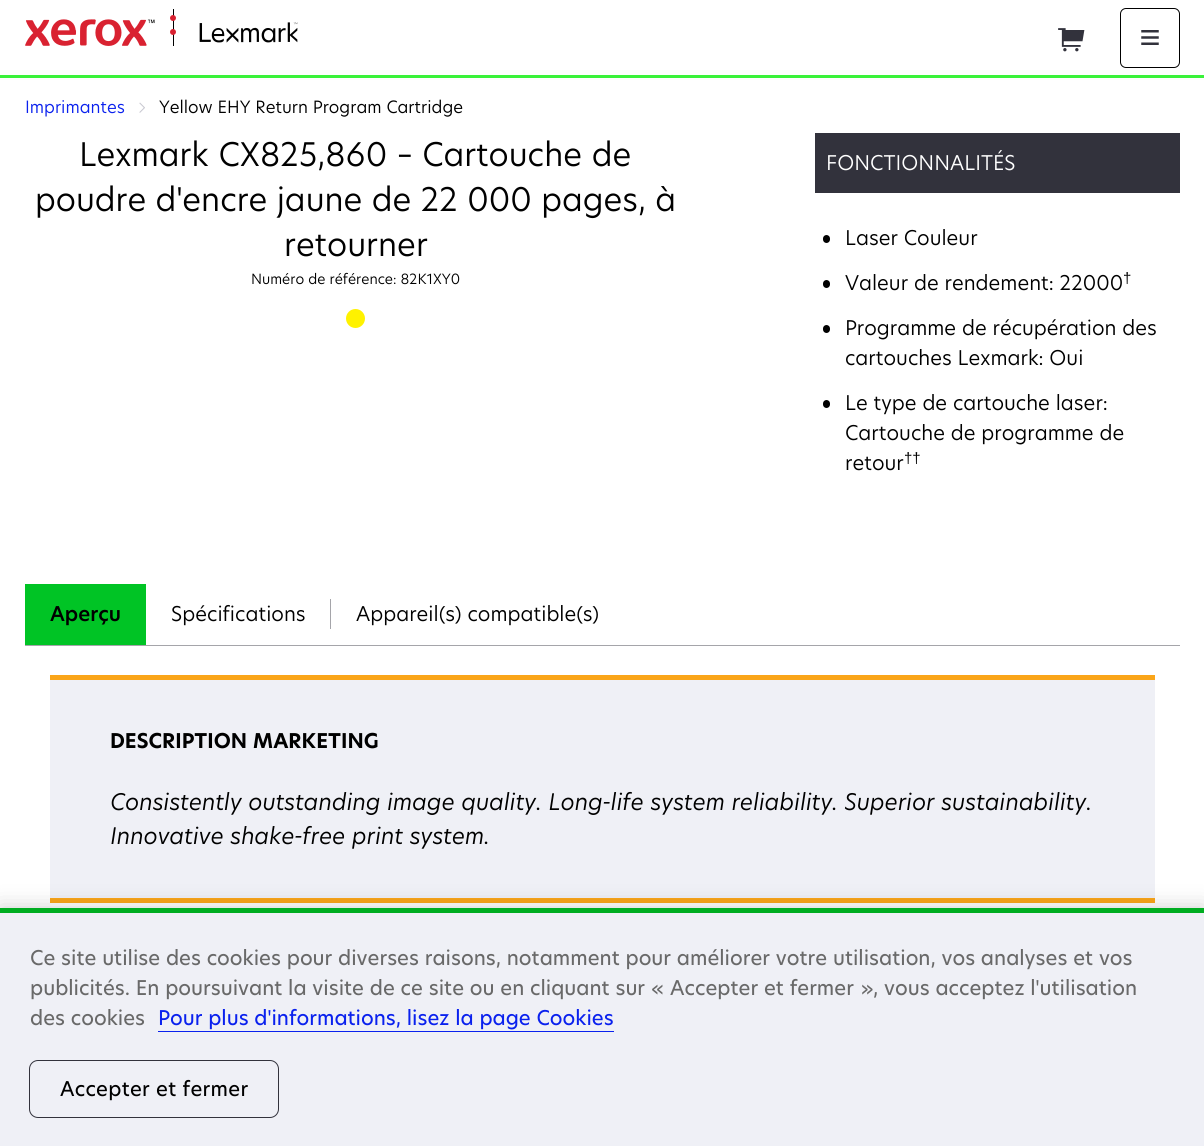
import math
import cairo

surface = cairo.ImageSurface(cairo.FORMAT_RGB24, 1204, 1146)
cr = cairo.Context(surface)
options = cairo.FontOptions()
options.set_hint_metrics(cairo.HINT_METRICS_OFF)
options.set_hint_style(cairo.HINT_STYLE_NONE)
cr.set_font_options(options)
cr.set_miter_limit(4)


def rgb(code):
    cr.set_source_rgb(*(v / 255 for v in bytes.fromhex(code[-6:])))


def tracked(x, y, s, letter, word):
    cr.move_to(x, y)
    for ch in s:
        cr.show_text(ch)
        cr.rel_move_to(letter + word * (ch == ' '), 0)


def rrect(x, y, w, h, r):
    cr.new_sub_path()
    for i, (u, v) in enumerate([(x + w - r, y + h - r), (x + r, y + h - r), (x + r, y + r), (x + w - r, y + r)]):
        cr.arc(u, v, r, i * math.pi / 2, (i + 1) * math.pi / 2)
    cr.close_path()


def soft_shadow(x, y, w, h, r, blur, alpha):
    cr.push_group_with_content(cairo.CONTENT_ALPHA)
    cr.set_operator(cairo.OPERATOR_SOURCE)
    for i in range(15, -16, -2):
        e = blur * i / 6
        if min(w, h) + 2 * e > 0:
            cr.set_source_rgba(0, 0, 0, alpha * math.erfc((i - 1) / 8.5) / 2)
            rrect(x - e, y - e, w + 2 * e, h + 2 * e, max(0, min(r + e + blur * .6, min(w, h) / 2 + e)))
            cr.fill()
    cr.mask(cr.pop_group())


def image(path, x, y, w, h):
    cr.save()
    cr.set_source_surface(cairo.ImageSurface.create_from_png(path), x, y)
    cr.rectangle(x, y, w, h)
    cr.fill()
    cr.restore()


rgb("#ffffff")
cr.paint()
rgb("#3af23a")
cr.rectangle(0, 75, 1204, 3)
cr.fill()
image("img/1.png", 25, 9, 273, 37)
image("img/2.png", 1058, 28, 27, 24)
rrect(1120.5, 8.5, 59, 59, 5.5)
rgb("#000000")
cr.set_line_width(1)
cr.stroke()
image("img/3.png", 1141, 30, 18, 15)
image("img/4.png", 139, 102, 6, 11)
rgb("#fff200")
cr.arc(355.5, 318.5, 9.5, 0, 2 * math.pi)
cr.fill()
rgb("#32323c")
cr.rectangle(815, 133, 365, 60)
cr.fill()
rgb("#000000")
rrect(823, 235, 7, 8, 3.5)
cr.fill()
rrect(823, 280, 7, 8, 3.5)
cr.fill()
rrect(823, 325, 7, 8, 3.5)
cr.fill()
rrect(823, 400, 7, 8, 3.5)
cr.fill()
for x, y, w, h, color in [
    (25, 645, 1155, 1, "#a5a5aa"),
    (25, 584, 121, 61, "#00c425"),
    (330, 599, 1, 30, "#a5a5aa"),
    (50, 680, 1105, 218, "#eff0f6"),
    (50, 675, 1105, 5, "#faa519"),
    (50, 898, 1105, 5, "#faa519"),
]:
    rgb(color)
    cr.rectangle(x, y, w, h)
    cr.fill()
rgb("#000000")
soft_shadow(0, 908, 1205, 238, 0, 11, 0.2)
for x, y, w, h, color in [
    (0, 913, 1204, 233, "#eff0f6"),
    (0, 908, 1204, 5, "#00ad21"),
    (158, 1031, 456, 1, "#0a21ee"),
]:
    rgb(color)
    cr.rectangle(x, y, w, h)
    cr.fill()
rrect(29.5, 1060.5, 249, 57, 8.5)
rgb("#32323c")
cr.stroke()
cr.select_font_face("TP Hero")
cr.set_font_size(16.7)
rgb("#0a21ee")
cr.move_to(25, 113)
cr.show_text("Imprimantes")
rgb("#000000")
cr.move_to(159, 113)
cr.show_text("Yellow EHY Return Program Cartridge")
cr.set_font_size(32)
tracked(79, 166, "Lexmark CX825,860 – Cartouche de", 0, 0.5)
cr.move_to(35, 211)
cr.show_text("poudre d'encre jaune de 22 000 pages, à")
cr.move_to(284, 256)
cr.show_text("retourner")
cr.set_font_size(13.9)
cr.move_to(251, 284)
cr.show_text("Numéro de référence: 82K1XY0")
cr.set_font_size(20)
rgb("#ffffff")
cr.move_to(826, 170)
cr.show_text("FONCTIONNALITÉS")
rgb("#000000")
cr.move_to(845, 245)
cr.show_text("Laser Couleur")
cr.move_to(845, 290)
cr.show_text("Valeur de rendement: 22000")
cr.select_font_face("Liberation Sans")
cr.set_font_size(15)
cr.move_to(1123, 283)
cr.show_text("†")
cr.select_font_face("TP Hero")
cr.set_font_size(20)
for x, y, s in [
    (845, 335, "Programme de récupération des"),
    (845, 365, "cartouches Lexmark: Oui"),
    (845, 410, "Le type de cartouche laser:"),
    (845, 440, "Cartouche de programme de"),
    (845, 470, "retour"),
]:
    cr.move_to(x, y)
    cr.show_text(s)
cr.select_font_face("Liberation Sans")
cr.set_font_size(15)
cr.move_to(904, 463)
cr.show_text("††")
cr.select_font_face("TP Hero SemiBold")
cr.set_font_size(20)
cr.move_to(50, 621)
cr.show_text("Aperçu")
cr.select_font_face("TP Hero")
cr.move_to(171, 621)
cr.show_text("Spécifications")
cr.move_to(356, 621)
cr.show_text("Appareil(s) compatible(s)")
cr.select_font_face("TP Hero", cairo.FONT_SLANT_NORMAL, cairo.FONT_WEIGHT_BOLD)
cr.move_to(110, 748)
cr.show_text("DESCRIPTION MARKETING")
cr.select_font_face("TP Hero", cairo.FONT_SLANT_ITALIC)
cr.set_font_size(22.5)
cr.move_to(110, 810)
cr.show_text("Consistently outstanding image quality. Long-life system reliability. Superior sustainability.")
cr.move_to(110, 844)
cr.show_text("Innovative shake-free print system.")
cr.select_font_face("TP Hero Medium")
cr.set_font_size(20)
rgb("#696969")
for x, y, s in [
    (30, 965, "Ce site utilise des cookies pour diverses raisons, notamment pour améliorer votre utilisation, vos analyses et vos"),
    (30, 995, "publicités. En poursuivant la visite de ce site ou en cliquant sur « Accepter et fermer », vous acceptez l'utilisation"),
    (30, 1025, "des cookies"),
]:
    cr.move_to(x, y)
    cr.show_text(s)
rgb("#0a21ee")
cr.move_to(158, 1025)
cr.show_text("Pour plus d'informations, lisez la page Cookies")
rgb("#000000")
tracked(60, 1096, "Accepter et fermer", 0.25, 0)
surface.write_to_png("page.png")
